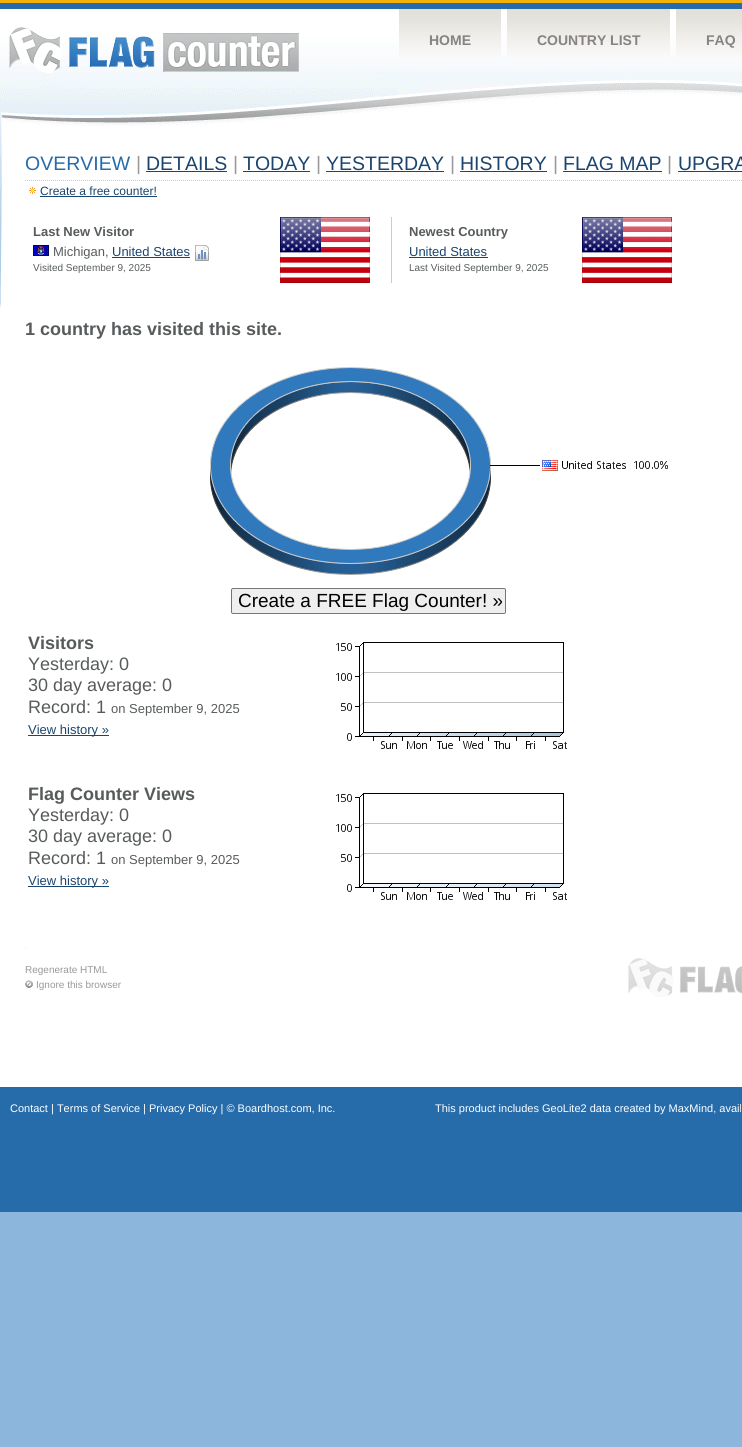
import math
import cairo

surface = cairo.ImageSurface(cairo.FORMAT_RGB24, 742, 1447)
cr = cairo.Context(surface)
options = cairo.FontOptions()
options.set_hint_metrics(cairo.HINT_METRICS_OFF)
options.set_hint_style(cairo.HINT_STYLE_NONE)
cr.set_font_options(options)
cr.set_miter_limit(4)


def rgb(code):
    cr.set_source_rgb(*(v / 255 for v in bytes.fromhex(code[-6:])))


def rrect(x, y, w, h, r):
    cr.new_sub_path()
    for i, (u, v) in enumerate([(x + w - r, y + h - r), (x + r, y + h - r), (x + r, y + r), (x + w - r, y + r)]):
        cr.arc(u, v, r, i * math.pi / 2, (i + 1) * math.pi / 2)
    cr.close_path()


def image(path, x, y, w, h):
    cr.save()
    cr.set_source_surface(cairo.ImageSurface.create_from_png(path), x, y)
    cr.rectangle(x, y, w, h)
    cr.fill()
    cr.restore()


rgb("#8cb6dc")
cr.paint()
image("img/1.png", 0, 0, 742, 72)
image("img/2.png", 9, 27, 290, 45)
image("img/3.png", 399, 9, 102, 49)
image("img/4.png", 507, 9, 163, 49)
image("img/5.png", 676, 9, 66, 49)
rgb("#ffffff")
cr.rectangle(0, 309, 742, 778)
cr.fill()
image("img/6.png", 0, 72, 742, 237)
cr.new_path()
cr.move_to(25, 180.5)
cr.line_to(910, 180.5)
rgb("#cccccc")
cr.set_line_width(1)
cr.set_dash([1, 1])
cr.stroke()
for x, y, w, h, color in [
    (146, 171, 81, 1, "#1a456e"),
    (243, 171, 67, 1, "#1a456e"),
    (326, 171, 118, 1, "#1a456e"),
    (460, 171, 87, 1, "#1a456e"),
    (563, 171, 99, 1, "#1a456e"),
    (678, 171, 64, 1, "#1a456e"),
]:
    rgb(color)
    cr.rectangle(x, y, w, h)
    cr.fill()
image("img/7.png", 29, 187, 7, 7)
cr.rectangle(40, 196, 117, 1)
cr.fill()
image("img/8.png", 33, 245, 16, 11)
cr.rectangle(112, 257, 78, 1)
cr.fill()
image("img/9.png", 195, 245, 14, 16)
image("img/10.png", 280, 217, 90, 66)
rgb("#cccccc")
cr.rectangle(391, 217, 1, 66)
cr.fill()
rgb("#1a456e")
cr.rectangle(409, 257, 79, 1)
cr.fill()
image("img/11.png", 582, 217, 90, 66)
image("img/12.png", 210, 367, 458, 208)
rgb("#efefef")
rrect(231.5, 588.5, 274, 25, 1.5)
cr.fill_preserve()
rgb("#767676")
cr.set_dash([])
cr.stroke()
rgb("#1a456e")
cr.rectangle(28, 735, 81, 1)
cr.fill()
image("img/13.png", 336, 642, 231, 107)
cr.rectangle(28, 886, 81, 1)
cr.fill()
image("img/14.png", 336, 793, 231, 107)
rgb("#e6e6e6")
cr.rectangle(25, 947, 1, 1)
cr.fill()
image("img/15.png", 25, 980, 8, 8)
image("img/16.png", 628, 958, 114, 39)
rgb("#266baa")
cr.rectangle(0, 1087, 742, 125)
cr.fill()
cr.select_font_face("Liberation Sans", cairo.FONT_SLANT_NORMAL, cairo.FONT_WEIGHT_BOLD)
cr.set_font_size(14)
rgb("#868382")
for x, y, s in [
    (429, 45, "HOME"),
    (537, 45, "COUNTRY LIST"),
    (706, 45, "FAQ"),
]:
    cr.move_to(x, y)
    cr.show_text(s)
cr.select_font_face("Liberation Sans")
cr.set_font_size(19.5)
rgb("#266baa")
cr.move_to(25, 170)
cr.show_text("OVERVIEW")
rgb("#999999")
cr.move_to(136, 170)
cr.show_text("|")
rgb("#1a456e")
cr.move_to(146, 170)
cr.show_text("DETAILS")
rgb("#999999")
cr.move_to(233, 170)
cr.show_text("|")
rgb("#1a456e")
cr.move_to(243, 170)
cr.show_text("TODAY")
rgb("#999999")
cr.move_to(316, 170)
cr.show_text("|")
rgb("#1a456e")
cr.move_to(326, 170)
cr.show_text("YESTERDAY")
rgb("#999999")
cr.move_to(450, 170)
cr.show_text("|")
rgb("#1a456e")
cr.move_to(460, 170)
cr.show_text("HISTORY")
rgb("#999999")
cr.move_to(553, 170)
cr.show_text("|")
rgb("#1a456e")
cr.move_to(563, 170)
cr.show_text("FLAG MAP")
rgb("#999999")
cr.move_to(667, 170)
cr.show_text("|")
rgb("#1a456e")
cr.move_to(678, 170)
cr.show_text("UPGRA")
cr.set_font_size(12)
cr.move_to(40, 195)
cr.show_text("Create a free counter!")
cr.select_font_face("Liberation Sans", cairo.FONT_SLANT_NORMAL, cairo.FONT_WEIGHT_BOLD)
cr.set_font_size(13)
rgb("#575b5c")
cr.move_to(33, 236)
cr.show_text("Last New Visitor")
cr.select_font_face("Liberation Sans")
cr.move_to(53, 256)
cr.show_text("Michigan,")
rgb("#1a456e")
cr.move_to(112, 256)
cr.show_text("United States")
cr.set_font_size(10)
rgb("#575b5c")
cr.move_to(33, 271)
cr.show_text("Visited September 9, 2025")
cr.select_font_face("Liberation Sans", cairo.FONT_SLANT_NORMAL, cairo.FONT_WEIGHT_BOLD)
cr.set_font_size(13)
cr.move_to(409, 236)
cr.show_text("Newest Country")
cr.select_font_face("Liberation Sans")
rgb("#1a456e")
cr.move_to(409, 256)
cr.show_text("United States")
cr.set_font_size(10)
rgb("#575b5c")
cr.move_to(409, 271)
cr.show_text("Last Visited September 9, 2025")
cr.select_font_face("Liberation Sans", cairo.FONT_SLANT_NORMAL, cairo.FONT_WEIGHT_BOLD)
cr.set_font_size(18)
cr.move_to(25, 335)
cr.show_text("1 country has visited this site.")
cr.select_font_face("Liberation Sans")
cr.set_font_size(19)
rgb("#000000")
cr.move_to(238, 607)
cr.show_text("Create a FREE Flag Counter! »")
cr.select_font_face("Liberation Sans", cairo.FONT_SLANT_NORMAL, cairo.FONT_WEIGHT_BOLD)
cr.set_font_size(18)
rgb("#575b5c")
cr.move_to(28, 649)
cr.show_text("Visitors")
cr.select_font_face("Liberation Sans")
for x, y, s in [
    (28, 670, "Yesterday: 0"),
    (28, 691, "30 day average: 0"),
    (28, 713, "Record: 1"),
]:
    cr.move_to(x, y)
    cr.show_text(s)
cr.set_font_size(13)
cr.move_to(111, 713)
cr.show_text("on September 9, 2025")
rgb("#1a456e")
cr.move_to(28, 734)
cr.show_text("View history »")
cr.select_font_face("Liberation Sans", cairo.FONT_SLANT_NORMAL, cairo.FONT_WEIGHT_BOLD)
cr.set_font_size(18)
rgb("#575b5c")
cr.move_to(28, 800)
cr.show_text("Flag Counter Views")
cr.select_font_face("Liberation Sans")
for x, y, s in [
    (28, 821, "Yesterday: 0"),
    (28, 842, "30 day average: 0"),
    (28, 864, "Record: 1"),
]:
    cr.move_to(x, y)
    cr.show_text(s)
cr.set_font_size(13)
cr.move_to(111, 864)
cr.show_text("on September 9, 2025")
rgb("#1a456e")
cr.move_to(28, 885)
cr.show_text("View history »")
cr.set_font_size(10)
rgb("#999999")
cr.move_to(25, 973)
cr.show_text("Regenerate HTML")
cr.move_to(36, 988)
cr.show_text("Ignore this browser")
cr.set_font_size(11)
rgb("#ffffff")
cr.move_to(10, 1112)
cr.show_text("Contact | Terms of Service | Privacy Policy | © Boardhost.com, Inc.")
cr.move_to(435, 1112)
cr.show_text("This product includes GeoLite2 data created by MaxMind, avail")
surface.write_to_png("page.png")
